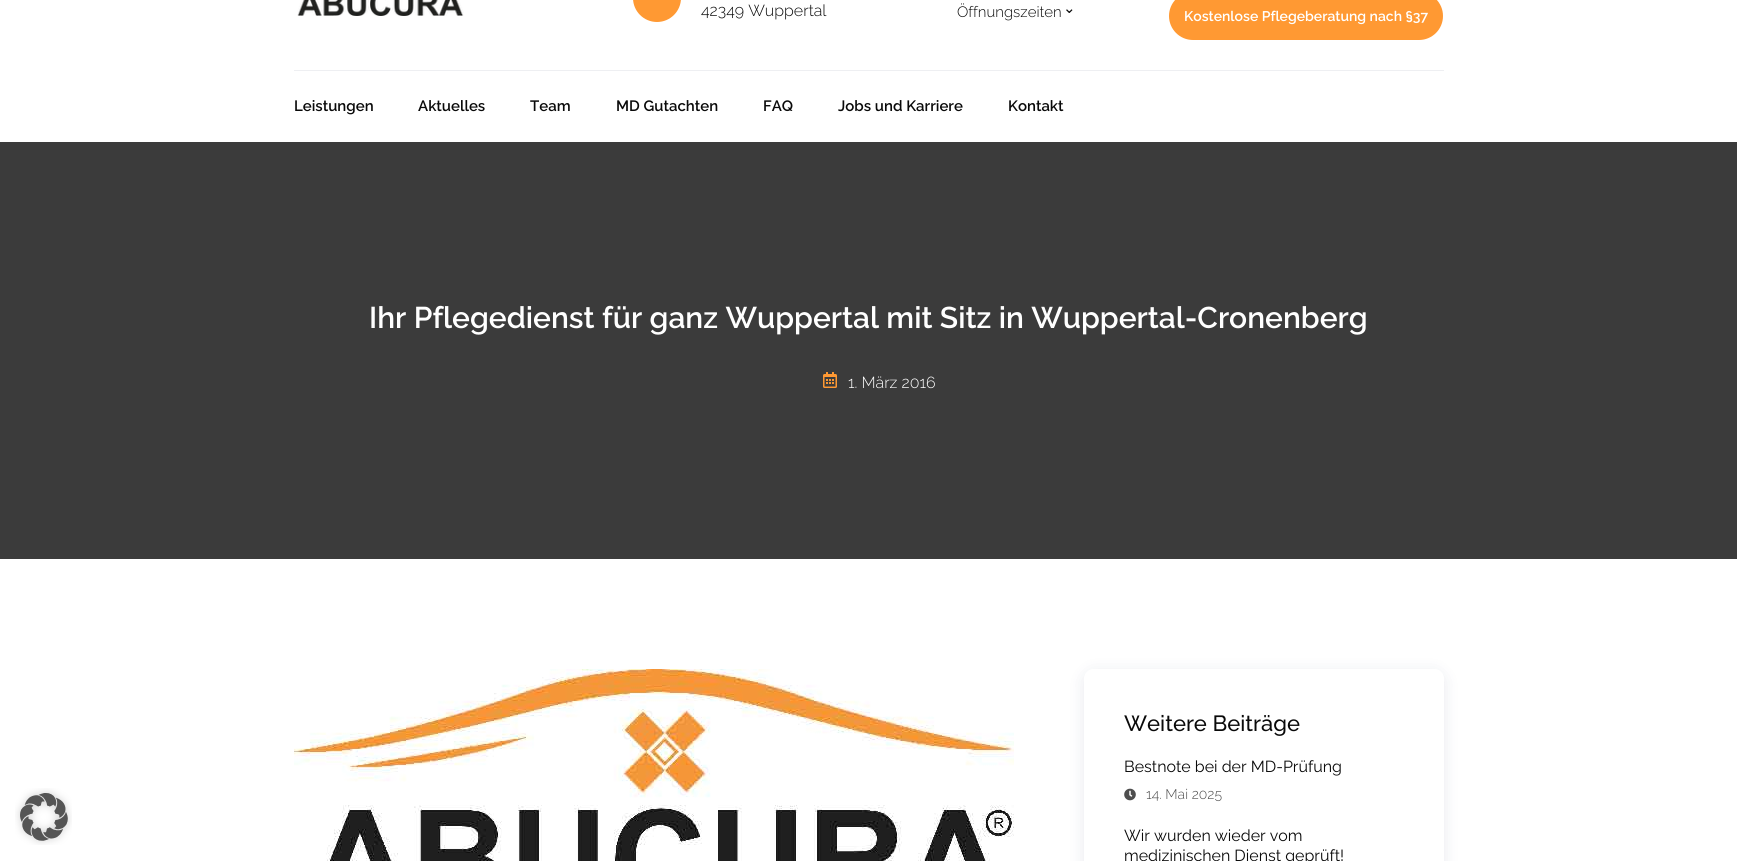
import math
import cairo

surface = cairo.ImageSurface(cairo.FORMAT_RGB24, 1737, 861)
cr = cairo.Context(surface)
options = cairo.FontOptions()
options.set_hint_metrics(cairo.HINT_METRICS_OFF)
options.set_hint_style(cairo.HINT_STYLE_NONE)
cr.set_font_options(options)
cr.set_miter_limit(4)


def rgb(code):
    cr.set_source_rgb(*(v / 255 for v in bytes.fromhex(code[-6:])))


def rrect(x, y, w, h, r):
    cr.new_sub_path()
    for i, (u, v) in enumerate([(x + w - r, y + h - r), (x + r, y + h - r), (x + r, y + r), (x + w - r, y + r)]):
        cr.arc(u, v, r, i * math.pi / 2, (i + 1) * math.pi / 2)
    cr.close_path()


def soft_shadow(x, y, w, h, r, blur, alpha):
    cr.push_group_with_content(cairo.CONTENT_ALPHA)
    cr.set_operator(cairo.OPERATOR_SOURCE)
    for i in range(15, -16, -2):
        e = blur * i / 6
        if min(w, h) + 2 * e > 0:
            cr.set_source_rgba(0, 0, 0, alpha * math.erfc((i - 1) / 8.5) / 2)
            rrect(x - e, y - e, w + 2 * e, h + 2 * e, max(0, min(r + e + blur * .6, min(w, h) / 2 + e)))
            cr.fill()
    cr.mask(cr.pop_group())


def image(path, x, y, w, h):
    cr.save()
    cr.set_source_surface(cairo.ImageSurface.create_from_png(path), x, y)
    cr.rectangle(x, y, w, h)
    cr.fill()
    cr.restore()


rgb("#ffffff")
cr.paint()
image("img/1.png", 297, 0, 167, 16)
rgb("#ff9933")
rrect(633, -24, 48, 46, 24)
cr.fill()
rrect(1169, -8, 274, 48, 24)
cr.fill()
rgb("#eeeff2")
cr.rectangle(294, 70, 1150, 1)
cr.fill()
image("img/2.png", 15, 788, 57, 57)
rgb("#3b3b3b")
cr.rectangle(0, 142, 1737, 417)
cr.fill()
image("img/3.png", 823, 372, 14, 16)
image("img/4.png", 294, 669, 720, 192)
cr.save()
cr.set_fill_rule(cairo.FILL_RULE_EVEN_ODD)
cr.new_path()
cr.move_to(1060, 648)
cr.line_to(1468, 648)
cr.line_to(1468, 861)
cr.line_to(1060, 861)
cr.close_path()
cr.move_to(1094, 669)
cr.line_to(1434, 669)
cr.curve_to(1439.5, 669, 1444, 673.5, 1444, 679)
cr.line_to(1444, 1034)
cr.curve_to(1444, 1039.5, 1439.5, 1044, 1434, 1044)
cr.line_to(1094, 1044)
cr.curve_to(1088.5, 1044, 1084, 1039.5, 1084, 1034)
cr.line_to(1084, 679)
cr.curve_to(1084, 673.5, 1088.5, 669, 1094, 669)
cr.close_path()
cr.clip()
rgb("#121c52")
soft_shadow(1084, 672, 360, 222, 10, 7.5, 0.1)
cr.restore()
image("img/5.png", 1124, 788, 12, 13)
cr.select_font_face("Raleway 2 Thin")
cr.set_font_size(16)
rgb("#0a0a0a")
cr.move_to(701, 16)
cr.show_text("42349 Wuppertal")
cr.set_font_size(15)
cr.move_to(957, 17)
cr.show_text("Öffnungszeiten")
cr.select_font_face("DejaVu Sans")
cr.move_to(1063, 13)
cr.show_text("⌄")
cr.select_font_face("Raleway Thin")
cr.set_font_size(14)
rgb("#ffffff")
cr.move_to(1184, 21)
cr.show_text("Kostenlose Pflegeberatung nach §37")
cr.set_font_size(15)
rgb("#0a0a0a")
for x, y, s in [
    (294, 111, "Leistungen"),
    (418, 111, "Aktuelles"),
    (530, 111, "Team"),
    (616, 111, "MD Gutachten"),
    (763, 111, "FAQ"),
    (838, 111, "Jobs und Karriere"),
    (1008, 111, "Kontakt"),
]:
    cr.move_to(x, y)
    cr.show_text(s)
cr.set_font_size(30)
rgb("#ffffff")
cr.move_to(369, 328)
cr.show_text("Ihr Pflegedienst für ganz Wuppertal mit Sitz in Wuppertal-Cronenberg")
cr.select_font_face("Raleway 2 Thin")
cr.set_font_size(16)
cr.move_to(848, 388)
cr.show_text("1. März 2016")
cr.select_font_face("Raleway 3 Thin")
cr.set_font_size(22)
rgb("#0a0a0a")
cr.move_to(1124, 731)
cr.show_text("Weitere Beiträge")
cr.select_font_face("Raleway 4 Thin")
cr.set_font_size(16)
cr.move_to(1124, 772)
cr.show_text("Bestnote bei der MD-Prüfung")
cr.select_font_face("Raleway 2 Thin")
cr.set_font_size(14)
rgb("#4e4e4e")
cr.move_to(1146, 799)
cr.show_text("14. Mai 2025")
cr.select_font_face("Raleway 4 Thin")
cr.set_font_size(16)
rgb("#0a0a0a")
cr.move_to(1124, 841)
cr.show_text("Wir wurden wieder vom")
cr.move_to(1124, 861)
cr.show_text("medizinischen Dienst geprüft!")
surface.write_to_png("page.png")
